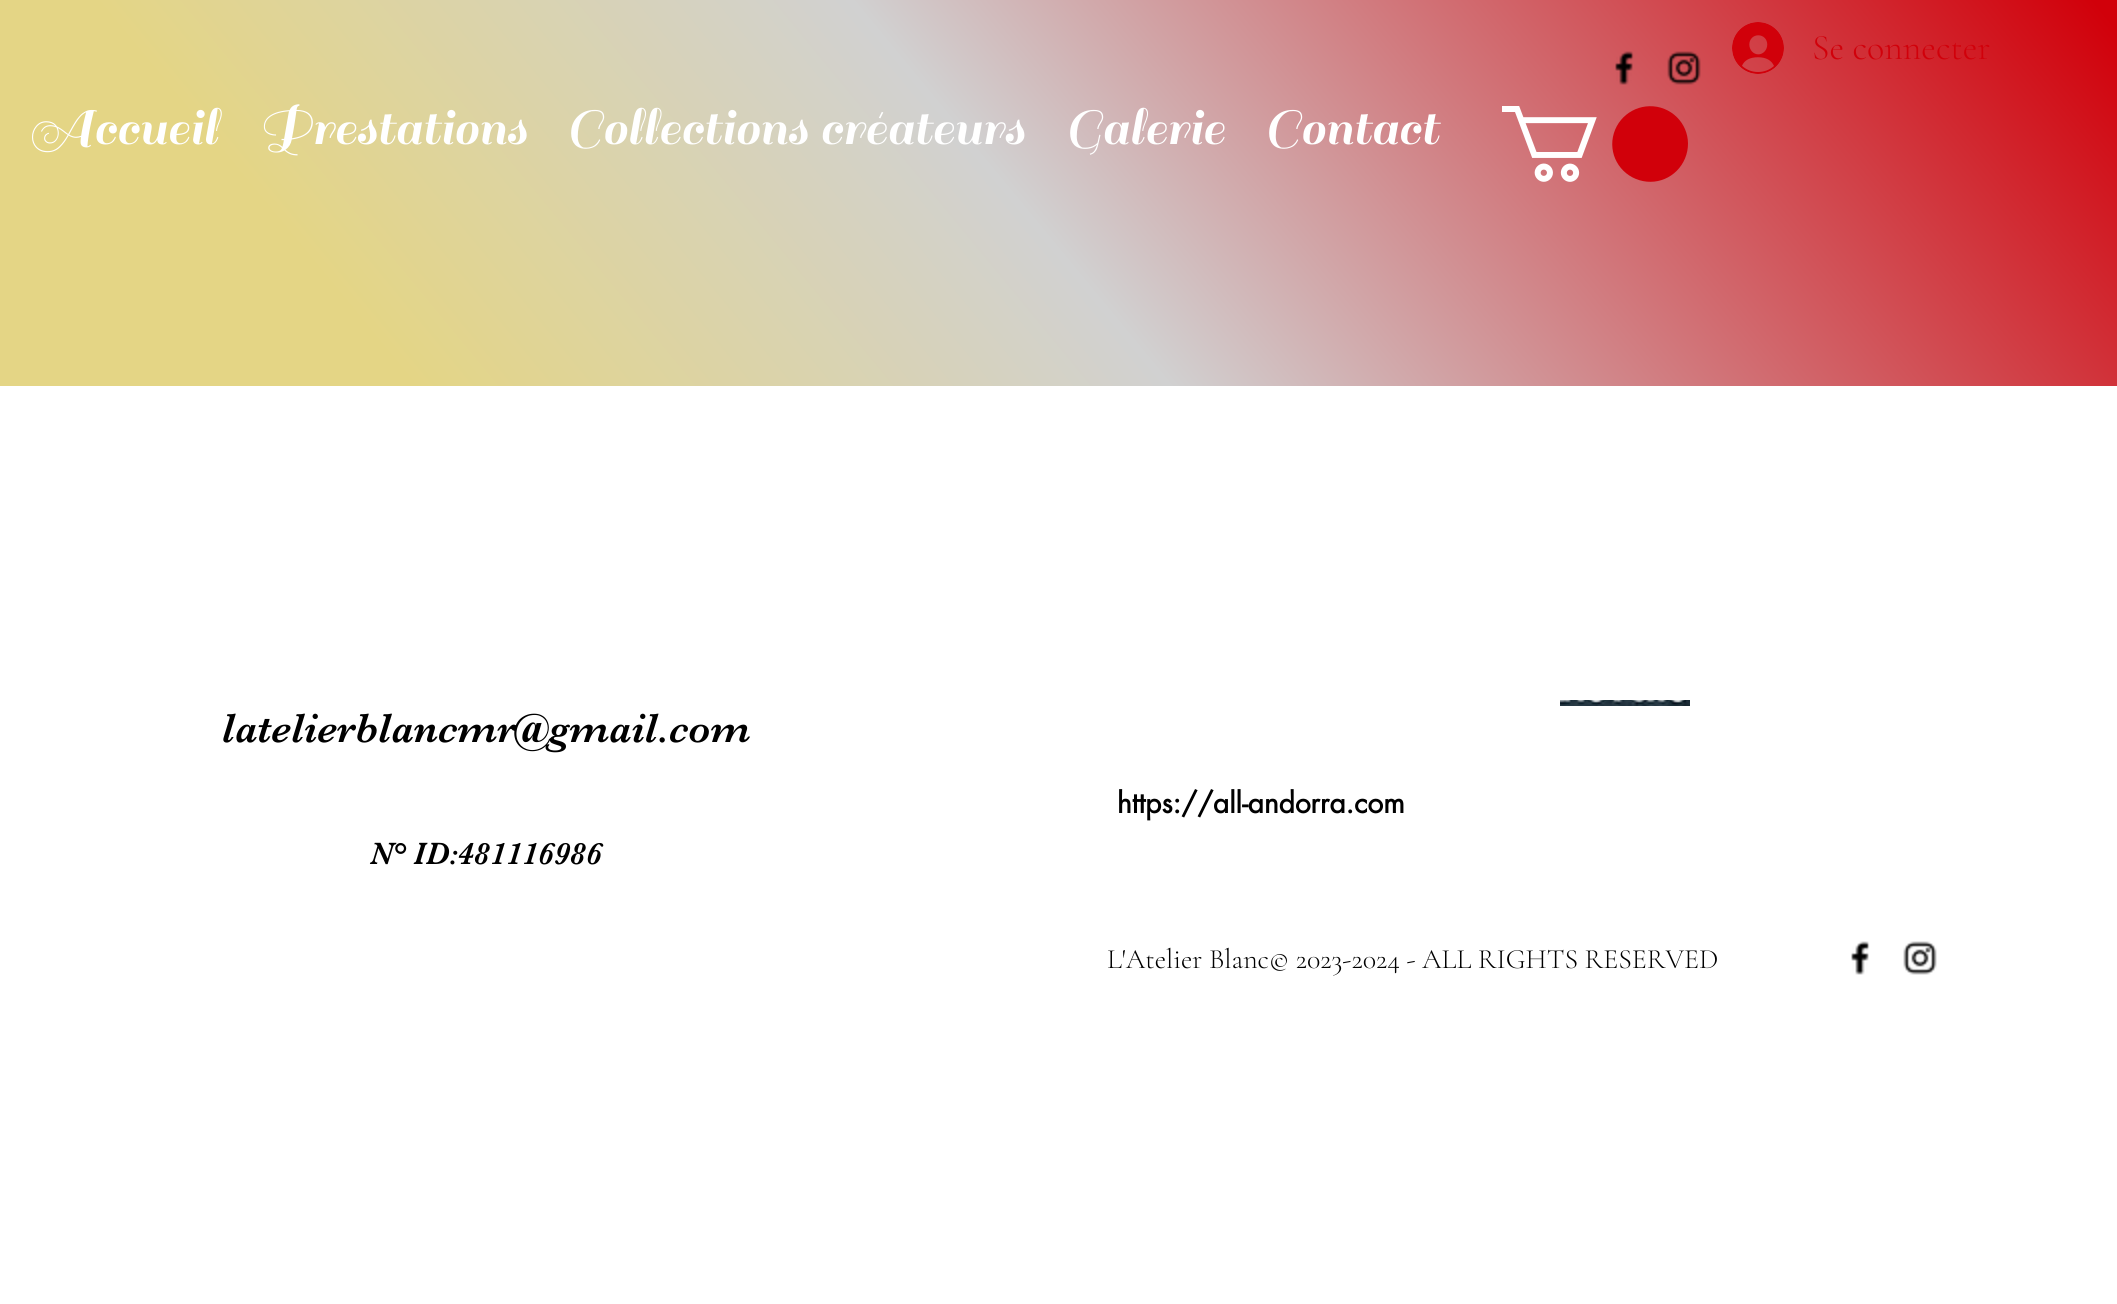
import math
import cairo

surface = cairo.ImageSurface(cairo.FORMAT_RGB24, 2117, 1304)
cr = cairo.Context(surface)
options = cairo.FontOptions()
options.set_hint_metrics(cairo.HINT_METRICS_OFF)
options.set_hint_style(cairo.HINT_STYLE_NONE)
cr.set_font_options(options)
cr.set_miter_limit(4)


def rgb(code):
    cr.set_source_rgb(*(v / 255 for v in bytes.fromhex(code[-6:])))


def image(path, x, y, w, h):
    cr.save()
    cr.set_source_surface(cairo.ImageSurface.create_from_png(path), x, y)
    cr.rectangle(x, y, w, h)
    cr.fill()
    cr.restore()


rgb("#ffffff")
cr.paint()
gradient = cairo.LinearGradient(334, 791, 1784, -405)
gradient.add_color_stop_rgba(0.17, 0.894, 0.835, 0.522, 1)
gradient.add_color_stop_rgba(0.48, 0.82, 0.82, 0.82, 1)
gradient.add_color_stop_rgba(0.99, 0.82, 0, 0.039, 1)
cr.set_source(gradient)
cr.rectangle(0, 0, 2117, 386)
cr.fill()
image("img/1.png", 1732, 22, 52, 52)
image("img/2.png", 1615, 51, 19, 34)
image("img/3.png", 1667, 51, 34, 34)
image("img/4.png", 1502, 106, 186, 76)
image("img/5.png", 1560, 700, 130, 6)
image("img/6.png", 1851, 941, 19, 34)
image("img/7.png", 1903, 941, 34, 34)
cr.select_font_face("Cormorant Garamond Light")
cr.set_font_size(36)
rgb("#d1000a")
cr.move_to(1812, 59)
cr.show_text("Se connecter")
cr.select_font_face("Sail")
cr.set_font_size(56)
rgb("#ffffff")
for x, y, s in [
    (29, 144, "Accueil"),
    (258, 144, "Prestations"),
    (566, 144, "Collections créateurs"),
    (1065, 144, "Galerie"),
    (1264, 144, "Contact"),
]:
    cr.move_to(x, y)
    cr.show_text(s)
cr.select_font_face("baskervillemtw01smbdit")
cr.set_font_size(42)
rgb("#000000")
cr.move_to(222, 742)
cr.show_text("latelierblancmr@gmail.com")
cr.set_font_size(32)
cr.move_to(370, 864)
cr.show_text("N° ID:481116986")
cr.select_font_face("futura", cairo.FONT_SLANT_NORMAL, cairo.FONT_WEIGHT_BOLD)
cr.set_font_size(28)
cr.move_to(1117, 813)
cr.show_text("https://all-andorra.com")
cr.select_font_face("Cormorant Garamond Light")
cr.move_to(1107, 968)
cr.show_text("L'Atelier Blanc© 2023-2024 - ALL RIGHTS RESERVED")
surface.write_to_png("page.png")
